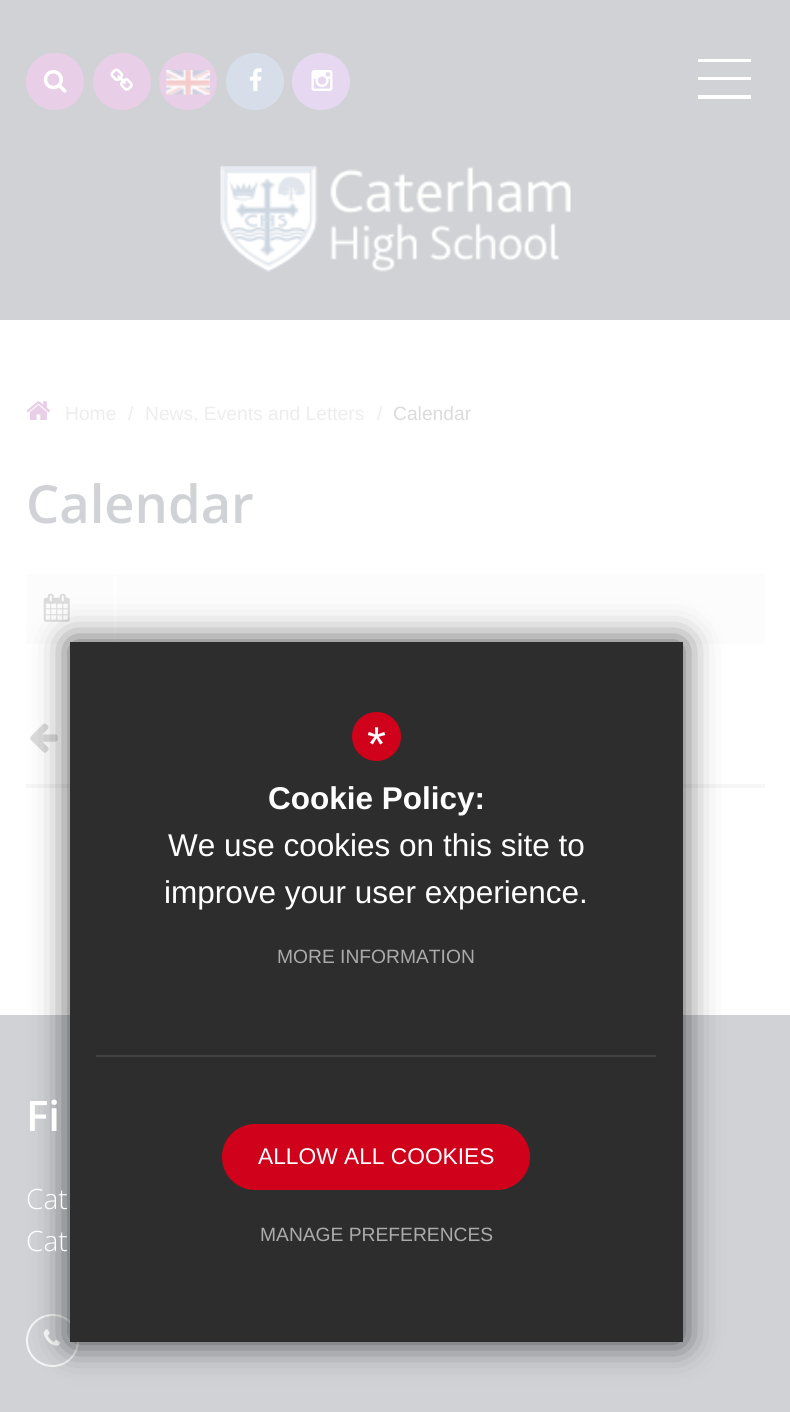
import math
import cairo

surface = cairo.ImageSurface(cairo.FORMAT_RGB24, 790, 1412)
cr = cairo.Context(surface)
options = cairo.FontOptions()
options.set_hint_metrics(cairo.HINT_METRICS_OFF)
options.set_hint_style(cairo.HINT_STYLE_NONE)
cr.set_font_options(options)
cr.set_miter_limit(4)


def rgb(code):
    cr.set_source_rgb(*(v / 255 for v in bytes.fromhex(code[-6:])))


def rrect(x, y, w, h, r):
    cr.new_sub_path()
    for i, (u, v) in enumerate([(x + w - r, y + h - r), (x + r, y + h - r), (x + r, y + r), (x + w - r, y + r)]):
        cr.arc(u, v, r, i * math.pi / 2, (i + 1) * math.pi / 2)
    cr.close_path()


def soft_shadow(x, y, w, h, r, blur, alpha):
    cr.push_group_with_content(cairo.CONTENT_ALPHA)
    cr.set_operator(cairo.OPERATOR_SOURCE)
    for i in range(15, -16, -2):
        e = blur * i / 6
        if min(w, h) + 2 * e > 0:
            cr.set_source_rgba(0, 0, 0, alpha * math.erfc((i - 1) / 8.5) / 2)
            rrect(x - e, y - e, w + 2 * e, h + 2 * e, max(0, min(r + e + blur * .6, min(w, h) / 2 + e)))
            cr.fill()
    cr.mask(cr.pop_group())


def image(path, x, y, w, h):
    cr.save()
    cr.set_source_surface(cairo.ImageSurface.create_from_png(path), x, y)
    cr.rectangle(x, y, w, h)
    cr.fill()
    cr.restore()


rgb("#ffffff")
cr.paint()
rgb("#d0d2d6")
cr.rectangle(0, 0, 790, 320)
cr.fill()
rgb("#e8cee6")
rrect(26, 53, 58, 57, 28.5)
cr.fill()
image("img/1.png", 43, 70, 24, 23)
rrect(93, 53, 58, 57, 28.5)
cr.fill()
image("img/2.png", 110, 68, 23, 23)
rrect(159, 53, 58, 57, 28.5)
cr.fill()
image("img/3.png", 166, 70, 44, 25)
rgb("#d7deea")
rrect(226, 53, 58, 57, 28.5)
cr.fill()
image("img/4.png", 249, 68, 13, 23)
rgb("#e6d8f0")
rrect(292, 53, 58, 57, 28.5)
cr.fill()
image("img/5.png", 311, 70, 22, 21)
rgb("#ffffff")
cr.new_path()
cr.move_to(698, 62)
cr.line_to(698, 59)
cr.line_to(751, 59)
cr.line_to(751, 62)
cr.close_path()
cr.move_to(698, 80)
cr.line_to(698, 77)
cr.line_to(751, 77)
cr.line_to(751, 80)
cr.close_path()
cr.move_to(698, 99)
cr.line_to(698, 95)
cr.line_to(751, 95)
cr.line_to(751, 99)
cr.close_path()
cr.fill()
image("img/6.png", 220, 166, 351, 106)
image("img/7.png", 26, 401, 25, 19)
rgb("#fcfcfc")
cr.rectangle(26, 574, 739, 70)
cr.fill()
rgb("#ffffff")
cr.rectangle(114, 574, 2, 70)
cr.fill()
image("img/8.png", 43, 593, 27, 29)
rgb("#f6f6f6")
cr.rectangle(26, 784, 739, 4)
cr.fill()
image("img/9.png", 30, 723, 28, 30)
rgb("#d0d2d6")
cr.rectangle(0, 1015, 790, 397)
cr.fill()
cr.arc(52.5, 1340.5, 25.5, 0, 2 * math.pi)
rgb("#f6f6f6")
cr.stroke()
image("img/10.png", 43, 1329, 18, 17)
rgb("#000000")
soft_shadow(70, 642, 613, 700, 0, 17.5, 0.7)
rgb("#2d2d2d")
cr.rectangle(70, 642, 613, 700)
cr.fill()
rgb("#424242")
cr.rectangle(96, 1055, 560, 2)
cr.fill()
rgb("#d0011b")
cr.arc(376.5, 736.5, 24.5, 0, 2 * math.pi)
cr.fill()
rrect(222, 1124, 308, 66, 33)
cr.fill()
cr.select_font_face("Liberation Sans")
cr.set_font_size(19.25)
rgb("#ededed")
for x, y, s in [
    (65, 420, "Home"),
    (128, 420, "/"),
    (145, 420, "News, Events and Letters"),
    (377, 420, "/"),
]:
    cr.move_to(x, y)
    cr.show_text(s)
rgb("#dbdbdb")
cr.move_to(393, 420)
cr.show_text("Calendar")
cr.select_font_face("Open Sans SemiBold")
cr.set_font_size(52.5)
rgb("#d0d2d6")
cr.move_to(26, 523)
cr.show_text("Calendar")
cr.set_font_size(42)
rgb("#ffffff")
cr.move_to(26, 1131)
cr.show_text("Fi")
cr.select_font_face("Open Sans Light")
cr.set_font_size(28)
cr.move_to(26, 1209)
cr.show_text("Cat")
cr.move_to(26, 1251)
cr.show_text("Cat")
cr.select_font_face("Liberation Sans")
cr.set_font_size(49)
cr.move_to(367, 761)
cr.show_text("*")
cr.select_font_face("Liberation Sans", cairo.FONT_SLANT_NORMAL, cairo.FONT_WEIGHT_BOLD)
cr.set_font_size(31.5)
cr.move_to(268, 809)
cr.show_text("Cookie Policy:")
cr.select_font_face("Liberation Sans")
cr.move_to(168, 856)
cr.show_text("We use cookies on this site to")
cr.move_to(164, 903)
cr.show_text("improve your user experience.")
cr.set_font_size(19.25)
rgb("#ababab")
cr.move_to(277, 963)
cr.show_text("MORE INFORMATION")
cr.set_font_size(22.75)
rgb("#ffffff")
cr.move_to(258, 1164)
cr.show_text("ALLOW ALL COOKIES")
cr.set_font_size(19.25)
rgb("#ababab")
cr.move_to(260, 1241)
cr.show_text("MANAGE PREFERENCES")
surface.write_to_png("page.png")
